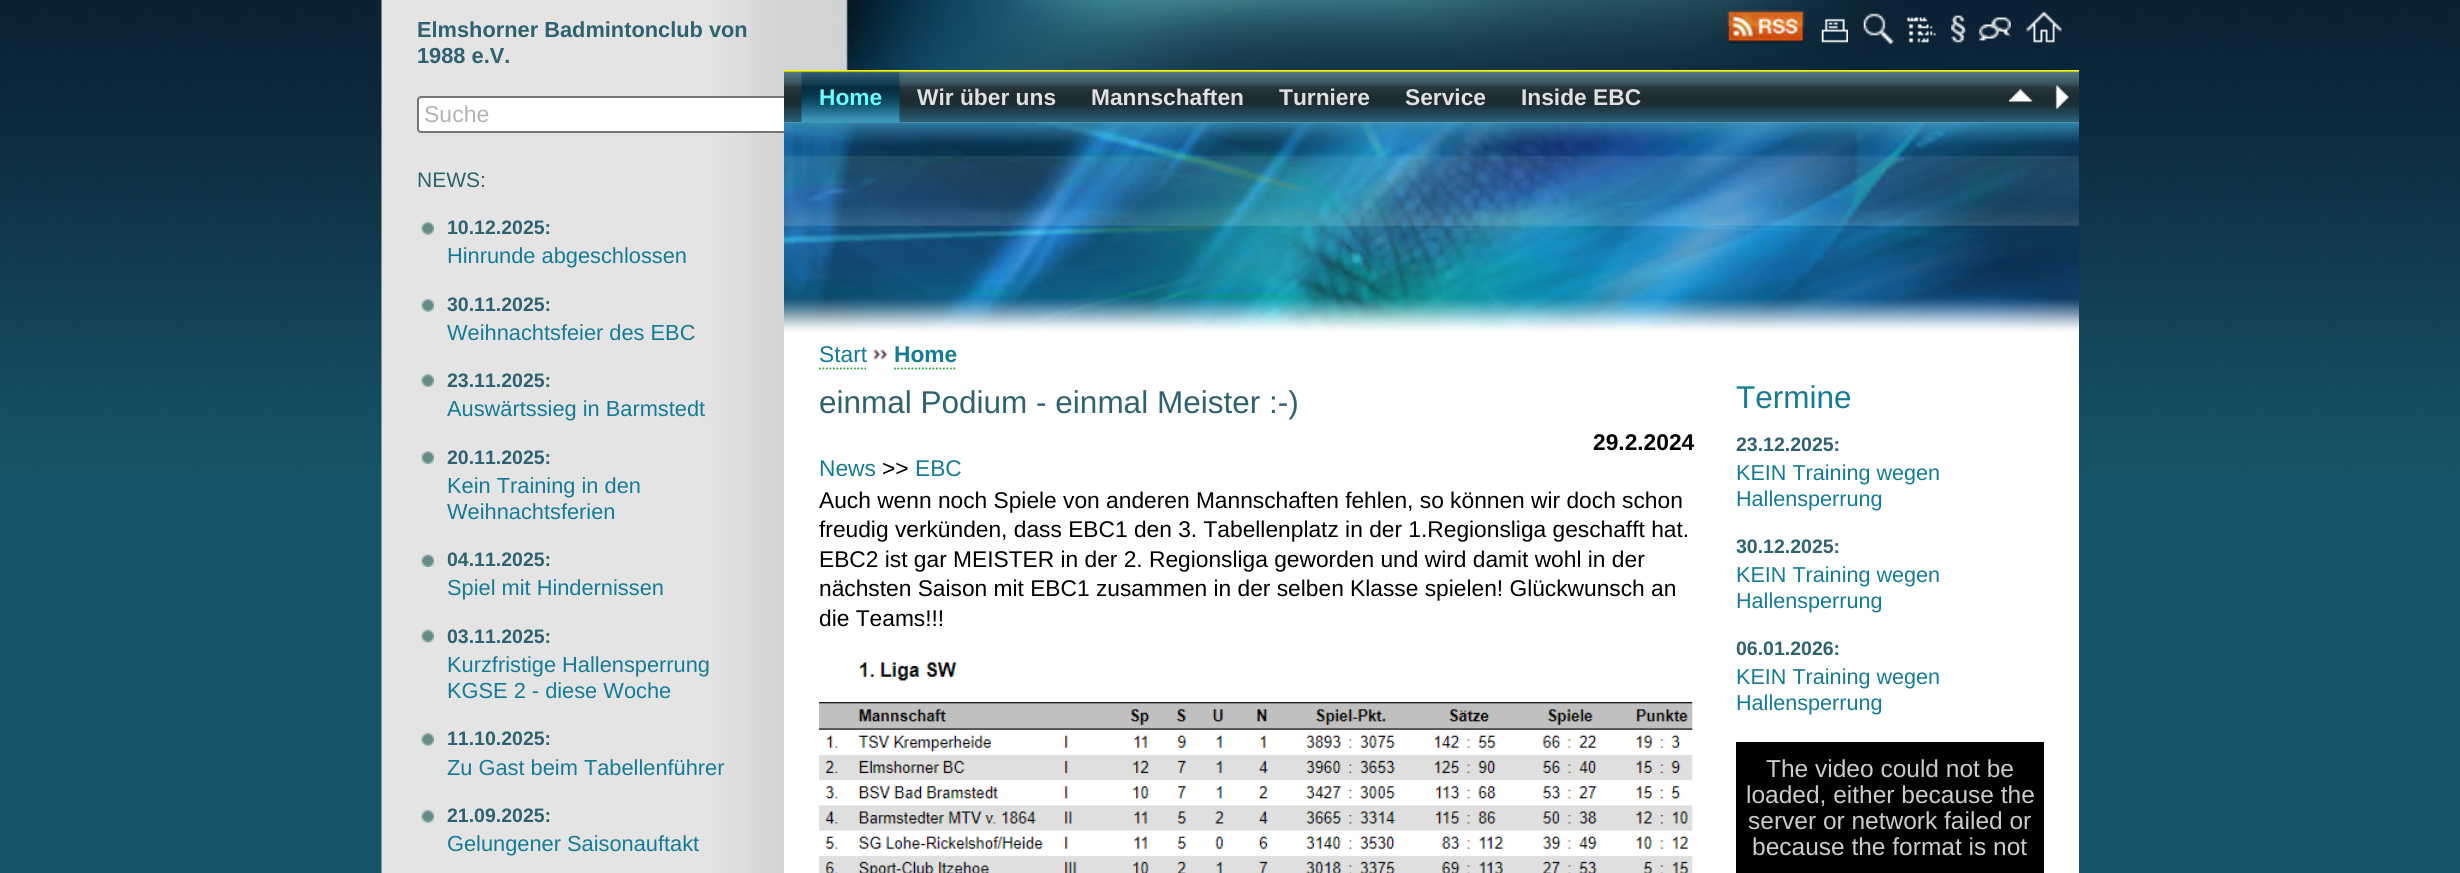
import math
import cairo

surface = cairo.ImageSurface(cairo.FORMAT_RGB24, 2460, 873)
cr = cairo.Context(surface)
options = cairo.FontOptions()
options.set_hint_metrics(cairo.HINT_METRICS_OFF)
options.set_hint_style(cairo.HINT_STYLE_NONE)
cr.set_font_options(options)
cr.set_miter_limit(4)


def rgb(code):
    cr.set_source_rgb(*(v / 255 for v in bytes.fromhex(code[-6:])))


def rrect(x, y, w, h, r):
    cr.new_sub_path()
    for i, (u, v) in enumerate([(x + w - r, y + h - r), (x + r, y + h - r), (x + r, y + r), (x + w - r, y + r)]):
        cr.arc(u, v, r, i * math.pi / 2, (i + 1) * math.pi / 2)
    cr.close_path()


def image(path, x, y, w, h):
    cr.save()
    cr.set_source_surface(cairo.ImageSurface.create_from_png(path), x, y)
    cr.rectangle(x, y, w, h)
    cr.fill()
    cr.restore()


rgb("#17566a")
cr.paint()
image("img/1.png", 0, 0, 2460, 471)
rgb("#ffffff")
cr.rectangle(784, 122, 1295, 751)
cr.fill()
image("img/2.png", 381, 0, 403, 873)
rrect(418, 97, 391, 35, 3)
cr.fill_preserve()
rgb("#767676")
cr.stroke()
image("img/3.png", 421, 221, 13, 14)
image("img/4.png", 421, 298, 13, 14)
image("img/5.png", 421, 374, 13, 13)
image("img/5.png", 421, 451, 13, 13)
image("img/6.png", 421, 554, 13, 13)
image("img/7.png", 421, 629, 13, 14)
image("img/4.png", 421, 732, 13, 14)
image("img/4.png", 421, 809, 13, 14)
image("img/8.png", 784, 0, 1295, 70)
image("img/9.png", 1727, 10, 78, 34)
image("img/10.png", 1821, 18, 27, 25)
image("img/11.png", 1863, 13, 31, 31)
image("img/12.png", 1907, 17, 29, 26)
image("img/13.png", 1951, 15, 15, 28)
image("img/14.png", 1979, 17, 32, 27)
image("img/15.png", 2026, 11, 36, 32)
image("img/16.png", 784, 70, 1295, 53)
image("img/20.png", 784, 122, 1295, 210)
image("img/22.png", 784, 123, 1295, 196)
cr.set_source_rgba(1, 1, 1, 0.99)
cr.rectangle(784, 123, 1295, 209)
cr.fill()
image("img/21.png", 784, 122, 1295, 210)
image("img/17.png", 801, 71, 99, 52)
image("img/18.png", 2009, 88, 24, 14)
image("img/19.png", 2055, 85, 14, 24)
cr.new_path()
cr.move_to(819, 368.5)
cr.line_to(866, 368.5)
rgb("#2fa337")
cr.set_line_width(1.8)
cr.set_dash([1.75, 1.75])
cr.stroke()
image("img/23.png", 873, 349, 15, 11)
cr.new_path()
cr.move_to(894, 368.5)
cr.line_to(957, 368.5)
cr.stroke()
image("img/24.png", 819, 662, 874, 211)
rgb("#000000")
cr.rectangle(1736, 742, 308, 131)
cr.fill()
cr.select_font_face("Liberation Sans", cairo.FONT_SLANT_NORMAL, cairo.FONT_WEIGHT_BOLD)
cr.set_font_size(21.8)
rgb("#2e6270")
cr.move_to(417, 37)
cr.show_text("Elmshorner Badmintonclub von")
cr.move_to(417, 63)
cr.show_text("1988 e.V.")
cr.select_font_face("Liberation Sans")
cr.set_font_size(23)
rgb("#b3b3b3")
cr.move_to(424, 122)
cr.show_text("Suche")
cr.set_font_size(21)
rgb("#2e6270")
cr.move_to(417, 187)
cr.show_text("NEWS:")
cr.select_font_face("Liberation Sans", cairo.FONT_SLANT_NORMAL, cairo.FONT_WEIGHT_BOLD)
cr.set_font_size(19.5)
cr.move_to(447, 234)
cr.show_text("10.12.2025:")
cr.select_font_face("Liberation Sans")
cr.set_font_size(21.8)
rgb("#147b97")
cr.move_to(447, 263)
cr.show_text("Hinrunde abgeschlossen")
cr.select_font_face("Liberation Sans", cairo.FONT_SLANT_NORMAL, cairo.FONT_WEIGHT_BOLD)
cr.set_font_size(19.5)
rgb("#2e6270")
cr.move_to(447, 311)
cr.show_text("30.11.2025:")
cr.select_font_face("Liberation Sans")
cr.set_font_size(21.8)
rgb("#147b97")
cr.move_to(447, 340)
cr.show_text("Weihnachtsfeier des EBC")
cr.select_font_face("Liberation Sans", cairo.FONT_SLANT_NORMAL, cairo.FONT_WEIGHT_BOLD)
cr.set_font_size(19.5)
rgb("#2e6270")
cr.move_to(447, 387)
cr.show_text("23.11.2025:")
cr.select_font_face("Liberation Sans")
cr.set_font_size(21.8)
rgb("#147b97")
cr.move_to(447, 416)
cr.show_text("Auswärtssieg in Barmstedt")
cr.select_font_face("Liberation Sans", cairo.FONT_SLANT_NORMAL, cairo.FONT_WEIGHT_BOLD)
cr.set_font_size(19.5)
rgb("#2e6270")
cr.move_to(447, 464)
cr.show_text("20.11.2025:")
cr.select_font_face("Liberation Sans")
cr.set_font_size(21.8)
rgb("#147b97")
cr.move_to(447, 493)
cr.show_text("Kein Training in den")
cr.move_to(447, 519)
cr.show_text("Weihnachtsferien")
cr.select_font_face("Liberation Sans", cairo.FONT_SLANT_NORMAL, cairo.FONT_WEIGHT_BOLD)
cr.set_font_size(19.5)
rgb("#2e6270")
cr.move_to(447, 566)
cr.show_text("04.11.2025:")
cr.select_font_face("Liberation Sans")
cr.set_font_size(21.8)
rgb("#147b97")
cr.move_to(447, 595)
cr.show_text("Spiel mit Hindernissen")
cr.select_font_face("Liberation Sans", cairo.FONT_SLANT_NORMAL, cairo.FONT_WEIGHT_BOLD)
cr.set_font_size(19.5)
rgb("#2e6270")
cr.move_to(447, 643)
cr.show_text("03.11.2025:")
cr.select_font_face("Liberation Sans")
cr.set_font_size(21.8)
rgb("#147b97")
cr.move_to(447, 672)
cr.show_text("Kurzfristige Hallensperrung")
cr.move_to(447, 698)
cr.show_text("KGSE 2 - diese Woche")
cr.select_font_face("Liberation Sans", cairo.FONT_SLANT_NORMAL, cairo.FONT_WEIGHT_BOLD)
cr.set_font_size(19.5)
rgb("#2e6270")
cr.move_to(447, 745)
cr.show_text("11.10.2025:")
cr.select_font_face("Liberation Sans")
cr.set_font_size(21.8)
rgb("#147b97")
cr.move_to(447, 775)
cr.show_text("Zu Gast beim Tabellenführer")
cr.select_font_face("Liberation Sans", cairo.FONT_SLANT_NORMAL, cairo.FONT_WEIGHT_BOLD)
cr.set_font_size(19.5)
rgb("#2e6270")
cr.move_to(447, 822)
cr.show_text("21.09.2025:")
cr.select_font_face("Liberation Sans")
cr.set_font_size(21.8)
rgb("#147b97")
cr.move_to(447, 851)
cr.show_text("Gelungener Saisonauftakt")
cr.select_font_face("Liberation Sans", cairo.FONT_SLANT_NORMAL, cairo.FONT_WEIGHT_BOLD)
cr.set_font_size(22.75)
rgb("#6dfcfe")
cr.move_to(819, 105)
cr.show_text("Home")
rgb("#e1e0e0")
for x, y, s in [
    (917, 105, "Wir über uns"),
    (1091, 105, "Mannschaften"),
    (1279, 105, "Turniere"),
    (1405, 105, "Service"),
    (1521, 105, "Inside EBC"),
]:
    cr.move_to(x, y)
    cr.show_text(s)
cr.select_font_face("Liberation Sans")
rgb("#147b97")
cr.move_to(819, 362)
cr.show_text("Start")
cr.select_font_face("Liberation Sans", cairo.FONT_SLANT_NORMAL, cairo.FONT_WEIGHT_BOLD)
cr.move_to(894, 362)
cr.show_text("Home")
cr.select_font_face("Liberation Sans")
cr.set_font_size(31.5)
rgb("#2e6270")
cr.move_to(819, 413)
cr.show_text("einmal Podium - einmal Meister :-)")
cr.select_font_face("Liberation Sans", cairo.FONT_SLANT_NORMAL, cairo.FONT_WEIGHT_BOLD)
cr.set_font_size(22.75)
rgb("#000000")
cr.move_to(1593, 450)
cr.show_text("29.2.2024")
cr.select_font_face("Liberation Sans")
rgb("#147b97")
cr.move_to(819, 476)
cr.show_text("News")
rgb("#000000")
cr.move_to(882, 476)
cr.show_text(">>")
rgb("#147b97")
cr.move_to(915, 476)
cr.show_text("EBC")
rgb("#000000")
for x, y, s in [
    (819, 508, "Auch wenn noch Spiele von anderen Mannschaften fehlen, so können wir doch schon"),
    (819, 537, "freudig verkünden, dass EBC1 den 3. Tabellenplatz in der 1.Regionsliga geschafft hat."),
    (819, 567, "EBC2 ist gar MEISTER in der 2. Regionsliga geworden und wird damit wohl in der"),
    (819, 596, "nächsten Saison mit EBC1 zusammen in der selben Klasse spielen! Glückwunsch an"),
    (819, 626, "die Teams!!!"),
]:
    cr.move_to(x, y)
    cr.show_text(s)
cr.set_font_size(31.5)
rgb("#147b97")
cr.move_to(1736, 408)
cr.show_text("Termine")
cr.select_font_face("Liberation Sans", cairo.FONT_SLANT_NORMAL, cairo.FONT_WEIGHT_BOLD)
cr.set_font_size(19.5)
rgb("#2e6270")
cr.move_to(1736, 451)
cr.show_text("23.12.2025:")
cr.select_font_face("Liberation Sans")
cr.set_font_size(21.6)
rgb("#147b97")
cr.move_to(1736, 480)
cr.show_text("KEIN Training wegen")
cr.move_to(1736, 506)
cr.show_text("Hallensperrung")
cr.select_font_face("Liberation Sans", cairo.FONT_SLANT_NORMAL, cairo.FONT_WEIGHT_BOLD)
cr.set_font_size(19.5)
rgb("#2e6270")
cr.move_to(1736, 553)
cr.show_text("30.12.2025:")
cr.select_font_face("Liberation Sans")
cr.set_font_size(21.6)
rgb("#147b97")
cr.move_to(1736, 582)
cr.show_text("KEIN Training wegen")
cr.move_to(1736, 608)
cr.show_text("Hallensperrung")
cr.select_font_face("Liberation Sans", cairo.FONT_SLANT_NORMAL, cairo.FONT_WEIGHT_BOLD)
cr.set_font_size(19.5)
rgb("#2e6270")
cr.move_to(1736, 655)
cr.show_text("06.01.2026:")
cr.select_font_face("Liberation Sans")
cr.set_font_size(21.6)
rgb("#147b97")
cr.move_to(1736, 684)
cr.show_text("KEIN Training wegen")
cr.move_to(1736, 710)
cr.show_text("Hallensperrung")
cr.set_font_size(24.5)
rgb("#cccccc")
for x, y, s in [
    (1766, 777, "The video could not be"),
    (1746, 803, "loaded, either because the"),
    (1748, 829, "server or network failed or"),
    (1752, 855, "because the format is not"),
]:
    cr.move_to(x, y)
    cr.show_text(s)
surface.write_to_png("page.png")
